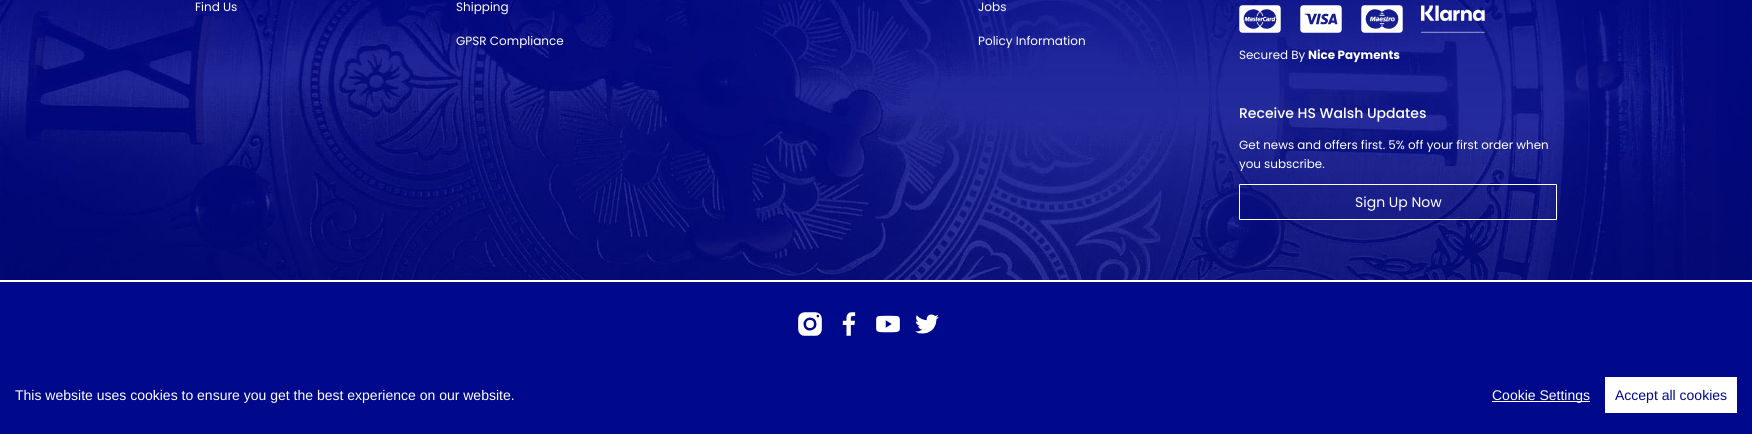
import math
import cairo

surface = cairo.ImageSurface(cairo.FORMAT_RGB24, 1752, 434)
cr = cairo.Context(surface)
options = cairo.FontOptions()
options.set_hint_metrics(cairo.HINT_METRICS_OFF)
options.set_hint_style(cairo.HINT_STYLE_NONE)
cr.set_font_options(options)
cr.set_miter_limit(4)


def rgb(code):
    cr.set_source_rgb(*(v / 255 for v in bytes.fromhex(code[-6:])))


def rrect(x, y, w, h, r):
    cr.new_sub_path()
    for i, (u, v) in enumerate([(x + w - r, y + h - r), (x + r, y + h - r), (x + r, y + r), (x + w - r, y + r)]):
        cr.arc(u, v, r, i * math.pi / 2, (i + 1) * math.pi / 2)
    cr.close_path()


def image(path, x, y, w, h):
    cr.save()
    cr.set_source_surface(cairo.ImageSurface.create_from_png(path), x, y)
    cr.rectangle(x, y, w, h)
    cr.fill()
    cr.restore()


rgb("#ffffff")
cr.paint()
image("img/1.png", 0, 0, 1752, 280)
image("img/2.png", 1239, 5, 42, 28)
image("img/3.png", 1300, 5, 42, 28)
image("img/4.png", 1361, 5, 42, 28)
image("img/5.png", 1421, 5, 64, 28)
rrect(1239.5, 184.5, 317, 35, 0.5)
rgb("#ffffff")
cr.set_line_width(1)
cr.stroke()
rgb("#00088c")
cr.rectangle(0, 282, 1752, 152)
cr.fill()
image("img/6.png", 798, 312, 24, 24)
image("img/7.png", 842, 312, 14, 24)
image("img/8.png", 876, 315, 24, 18)
image("img/9.png", 915, 314, 24, 20)
rgb("#ffffff")
cr.rectangle(1492, 401, 98, 1)
cr.fill()
cr.rectangle(1605, 377, 132, 36)
cr.fill()
cr.select_font_face("Poppins")
cr.set_font_size(12)
for x, y, s in [
    (195, 11, "Find Us"),
    (456, 11, "Shipping"),
    (456, 45, "GPSR Compliance"),
    (978, 11, "Jobs"),
    (978, 45, "Policy Information"),
]:
    cr.move_to(x, y)
    cr.show_text(s)
cr.set_font_size(11.9)
cr.move_to(1239, 59)
cr.show_text("Secured By")
cr.select_font_face("Poppins", cairo.FONT_SLANT_NORMAL, cairo.FONT_WEIGHT_BOLD)
cr.move_to(1308, 59)
cr.show_text("Nice Payments")
cr.select_font_face("Poppins Medium")
cr.set_font_size(14)
cr.move_to(1239, 118)
cr.show_text("Receive HS Walsh Updates")
cr.select_font_face("Poppins")
cr.set_font_size(11.9)
cr.move_to(1239, 149)
cr.show_text("Get news and offers first. 5% off your first order when")
cr.move_to(1239, 168)
cr.show_text("you subscribe.")
cr.set_font_size(14)
cr.move_to(1355, 207)
cr.show_text("Sign Up Now")
cr.select_font_face("Liberation Sans")
cr.move_to(15, 400)
cr.show_text("This website uses cookies to ensure you get the best experience on our website.")
cr.move_to(1492, 400)
cr.show_text("Cookie Settings")
rgb("#00088c")
cr.move_to(1615, 400)
cr.show_text("Accept all cookies")
surface.write_to_png("page.png")
